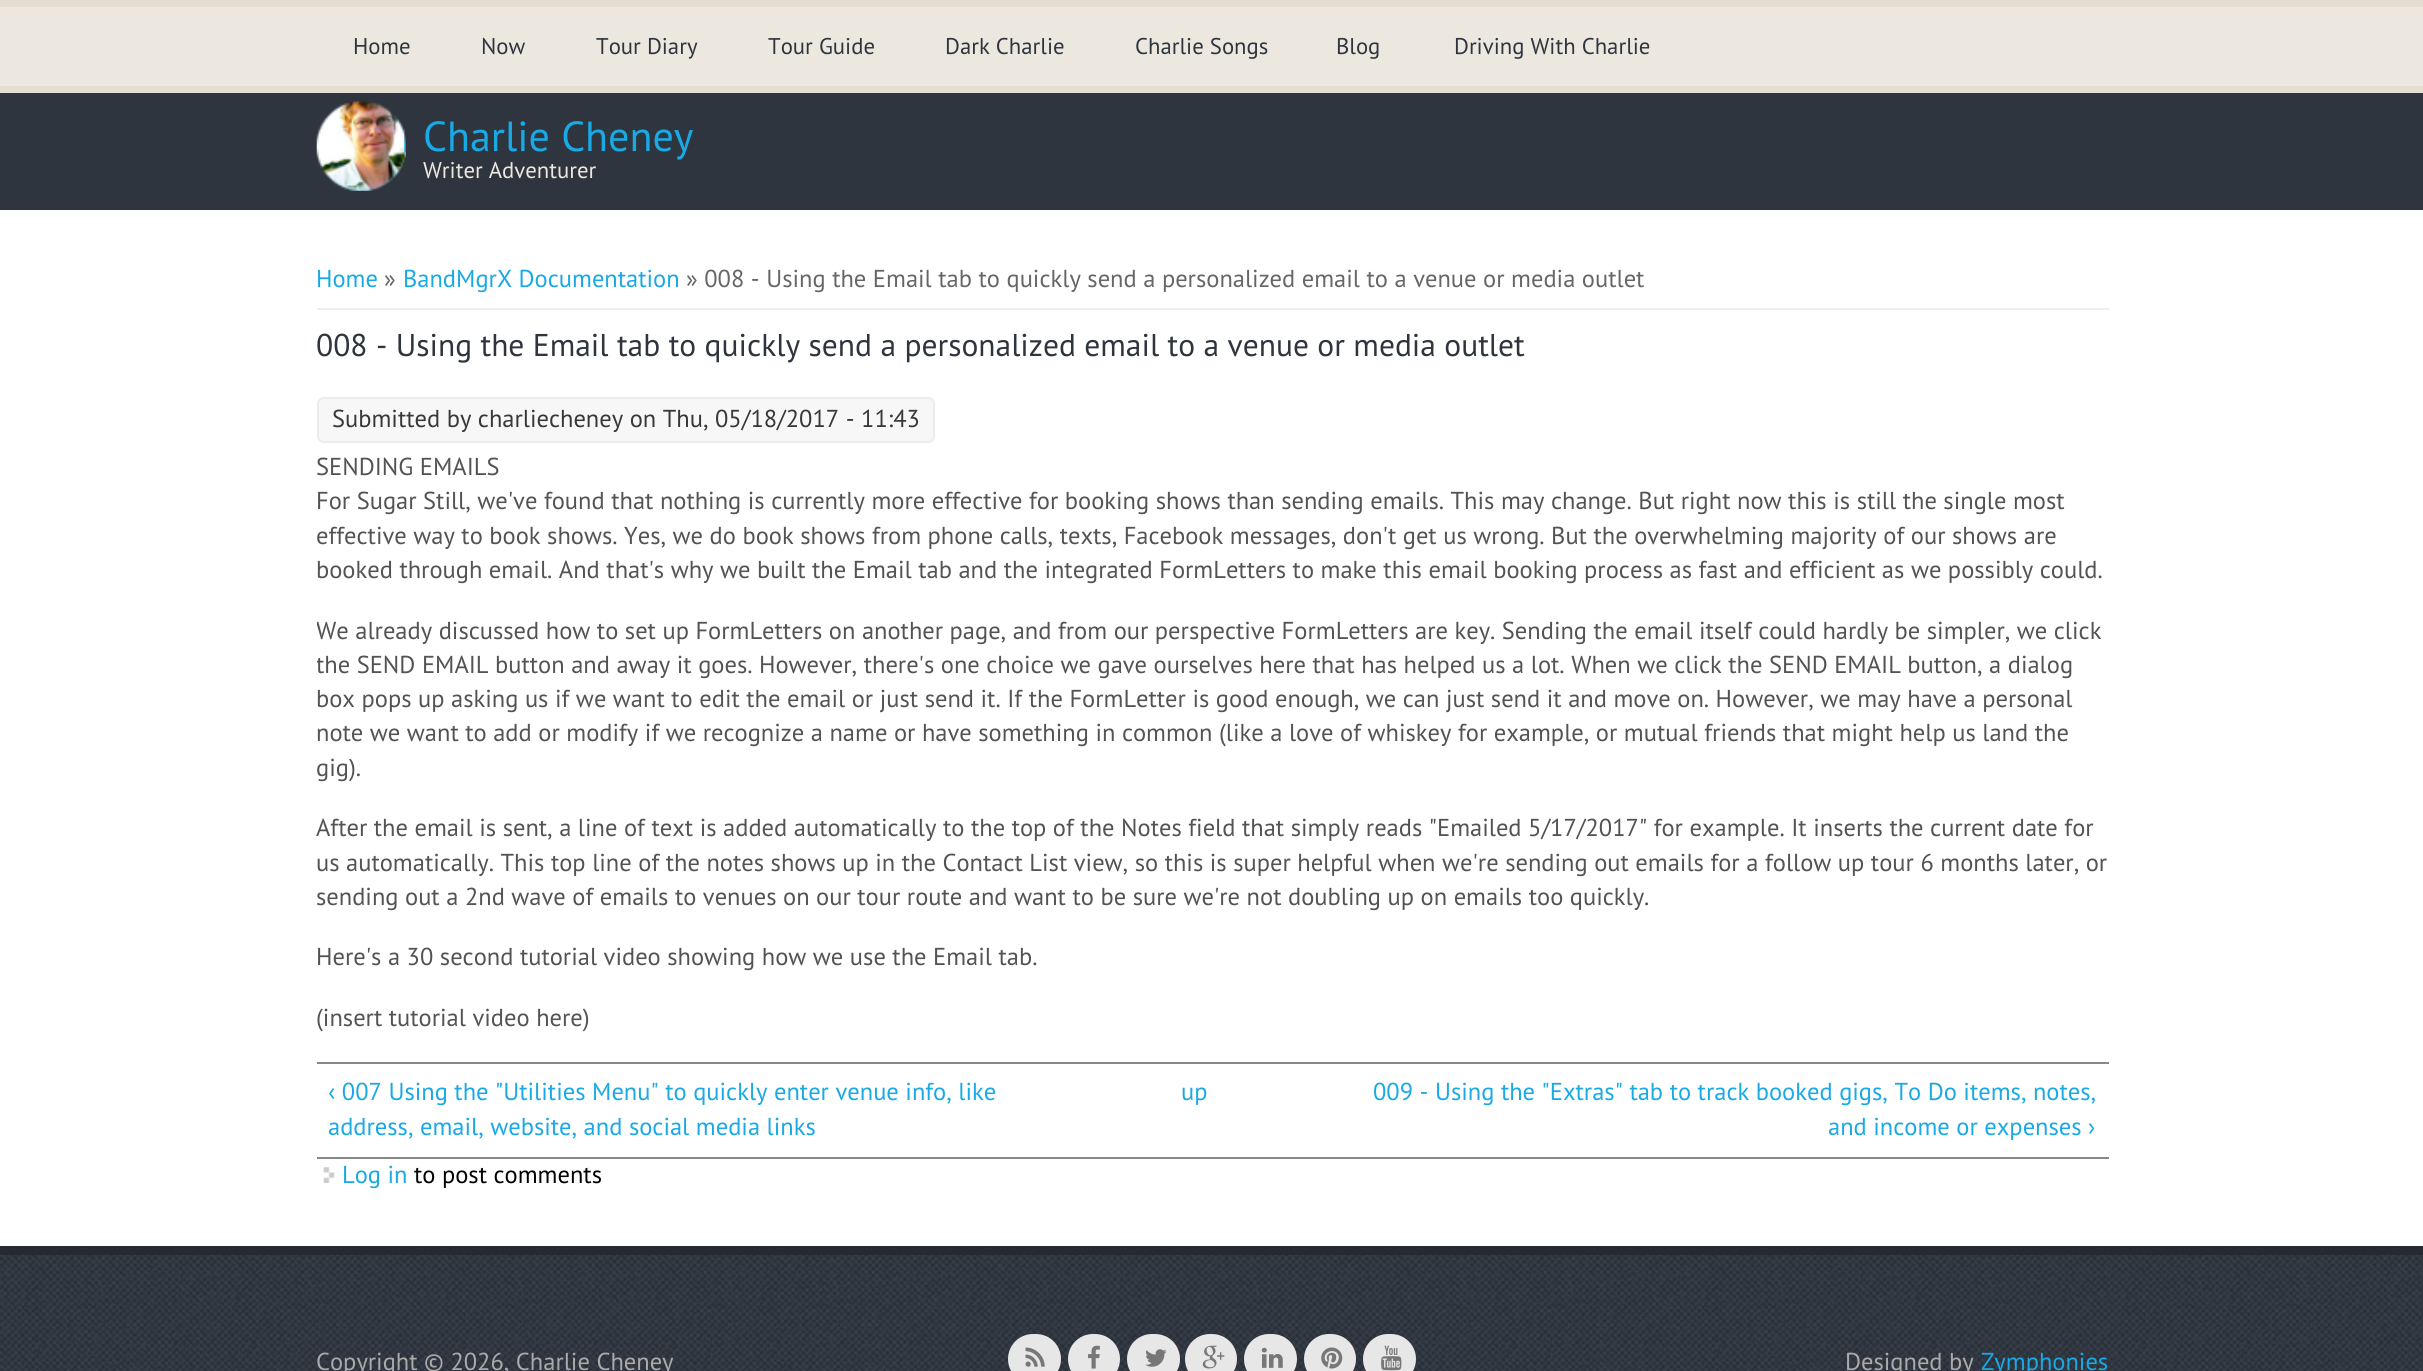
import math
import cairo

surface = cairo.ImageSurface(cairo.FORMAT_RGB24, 2423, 1371)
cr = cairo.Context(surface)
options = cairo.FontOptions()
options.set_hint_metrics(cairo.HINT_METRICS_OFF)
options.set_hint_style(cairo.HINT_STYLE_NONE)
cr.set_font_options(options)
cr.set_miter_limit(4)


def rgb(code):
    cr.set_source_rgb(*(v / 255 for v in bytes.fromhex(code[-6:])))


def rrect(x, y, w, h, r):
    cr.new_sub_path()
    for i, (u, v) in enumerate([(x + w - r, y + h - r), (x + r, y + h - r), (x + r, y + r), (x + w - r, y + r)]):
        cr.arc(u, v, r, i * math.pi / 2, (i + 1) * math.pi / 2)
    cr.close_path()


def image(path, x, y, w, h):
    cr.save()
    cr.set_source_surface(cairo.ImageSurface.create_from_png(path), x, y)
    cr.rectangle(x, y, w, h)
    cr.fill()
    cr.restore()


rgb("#ffffff")
cr.paint()
for x, y, w, h, color in [
    (0, 7, 2423, 79, "#ede8df"),
    (0, 0, 2423, 7, "#e4ddd1"),
    (0, 86, 2423, 7, "#e4ddd1"),
    (0, 93, 2423, 117, "#2f353e"),
]:
    rgb(color)
    cr.rectangle(x, y, w, h)
    cr.fill()
image("img/1.png", 316, 101, 90, 90)
rgb("#eeeeee")
cr.rectangle(317, 308, 1792, 2)
cr.fill()
rgb("#f7f7f7")
rrect(318, 398, 616, 44, 6)
cr.fill_preserve()
rgb("#ececec")
cr.stroke()
rgb("#888888")
cr.rectangle(317, 1062, 1792, 2)
cr.fill()
cr.rectangle(317, 1157, 1792, 2)
cr.fill()
image("img/2.png", 323, 1167, 12, 16)
image("img/3.png", 0, 1255, 2423, 116)
rgb("#242b33")
cr.rectangle(0, 1246, 2423, 9)
cr.fill()
rgb("#e7e7e7")
rrect(1008, 1334, 53, 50, 25)
cr.fill()
image("img/4.png", 1025, 1347, 20, 20)
rrect(1068, 1334, 52, 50, 25)
cr.fill()
image("img/5.png", 1088, 1345, 12, 24)
rrect(1127, 1334, 53, 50, 25)
cr.fill()
image("img/6.png", 1145, 1349, 22, 18)
rrect(1185, 1334, 52, 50, 25)
cr.fill()
image("img/7.png", 1202, 1345, 23, 24)
rrect(1244, 1334, 53, 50, 25)
cr.fill()
image("img/8.png", 1261, 1347, 22, 21)
rrect(1304, 1334, 52, 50, 25)
cr.fill()
image("img/9.png", 1321, 1347, 22, 22)
rrect(1363, 1334, 53, 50, 25)
cr.fill()
image("img/10.png", 1381, 1345, 21, 26)
cr.select_font_face("PT Sans")
cr.set_font_size(22.75)
rgb("#2f353e")
for x, y, s in [
    (353, 54, "Home"),
    (481, 54, "Now"),
    (596, 54, "Tour Diary"),
    (768, 54, "Tour Guide"),
    (945, 54, "Dark Charlie"),
    (1135, 54, "Charlie Songs"),
    (1336, 54, "Blog"),
    (1454, 54, "Driving With Charlie"),
]:
    cr.move_to(x, y)
    cr.show_text(s)
cr.set_font_size(42)
rgb("#19a9e5")
cr.move_to(423, 151)
cr.show_text("Charlie Cheney")
cr.set_font_size(22.75)
rgb("#ede8df")
cr.move_to(423, 178)
cr.show_text("Writer Adventurer")
cr.set_font_size(24.5)
rgb("#19a9e5")
cr.move_to(316, 287)
cr.show_text("Home")
rgb("#666666")
cr.move_to(384, 287)
cr.show_text("»")
rgb("#19a9e5")
cr.move_to(403, 287)
cr.show_text("BandMgrX Documentation")
rgb("#666666")
cr.move_to(686, 287)
cr.show_text("» 008 - Using the Email tab to quickly send a personalized email to a venue or media outlet")
cr.set_font_size(31.5)
rgb("#2f353e")
cr.move_to(316, 356)
cr.show_text("008 - Using the Email tab to quickly send a personalized email to a venue or media outlet")
cr.set_font_size(24.5)
rgb("#383838")
cr.move_to(332, 427)
cr.show_text("Submitted by charliecheney on Thu, 05/18/2017 - 11:43")
rgb("#535353")
for x, y, s in [
    (316, 475, "SENDING EMAILS"),
    (316, 509, "For Sugar Still, we've found that nothing is currently more effective for booking shows than sending emails. This may change. But right now this is still the single most"),
    (316, 544, "effective way to book shows. Yes, we do book shows from phone calls, texts, Facebook messages, don't get us wrong. But the overwhelming majority of our shows are"),
    (316, 578, "booked through email. And that's why we built the Email tab and the integrated FormLetters to make this email booking process as fast and efficient as we possibly could."),
]:
    cr.move_to(x, y)
    cr.show_text(s)
cr.save()
cr.rectangle(317, 245, 1792, 966)
cr.clip()
cr.move_to(316, 639)
cr.show_text("We already discussed how to set up FormLetters on another page, and from our perspective FormLetters are key. Sending the email itself could hardly be simpler, we click")
cr.move_to(316, 673)
cr.show_text("the SEND EMAIL button and away it goes. However, there's one choice we gave ourselves here that has helped us a lot. When we click the SEND EMAIL button, a dialog")
cr.restore()
for x, y, s in [
    (316, 707, "box pops up asking us if we want to edit the email or just send it. If the FormLetter is good enough, we can just send it and move on. However, we may have a personal"),
    (316, 741, "note we want to add or modify if we recognize a name or have something in common (like a love of whiskey for example, or mutual friends that might help us land the"),
    (316, 776, "gig)."),
    (316, 836, "After the email is sent, a line of text is added automatically to the top of the Notes field that simply reads \"Emailed 5/17/2017\" for example. It inserts the current date for"),
    (316, 871, "us automatically. This top line of the notes shows up in the Contact List view, so this is super helpful when we're sending out emails for a follow up tour 6 months later, or"),
    (316, 905, "sending out a 2nd wave of emails to venues on our tour route and want to be sure we're not doubling up on emails too quickly."),
    (316, 965, "Here's a 30 second tutorial video showing how we use the Email tab."),
    (316, 1026, "(insert tutorial video here)"),
]:
    cr.move_to(x, y)
    cr.show_text(s)
rgb("#19a9e5")
for x, y, s in [
    (328, 1100, "‹ 007 Using the \"Utilities Menu\" to quickly enter venue info, like"),
    (328, 1135, "address, email, website, and social media links"),
    (1181, 1100, "up"),
    (1373, 1100, "009 - Using the \"Extras\" tab to track booked gigs, To Do items, notes,"),
    (1828, 1135, "and income or expenses ›"),
    (342, 1183, "Log in"),
]:
    cr.move_to(x, y)
    cr.show_text(s)
rgb("#000000")
cr.move_to(414, 1183)
cr.show_text("to post comments")
rgb("#aaaaaa")
cr.move_to(316, 1370)
cr.show_text("Copyright © 2026, Charlie Cheney")
cr.move_to(1845, 1370)
cr.show_text("Designed by")
rgb("#19a9e5")
cr.move_to(1981, 1370)
cr.show_text("Zymphonies")
surface.write_to_png("page.png")
